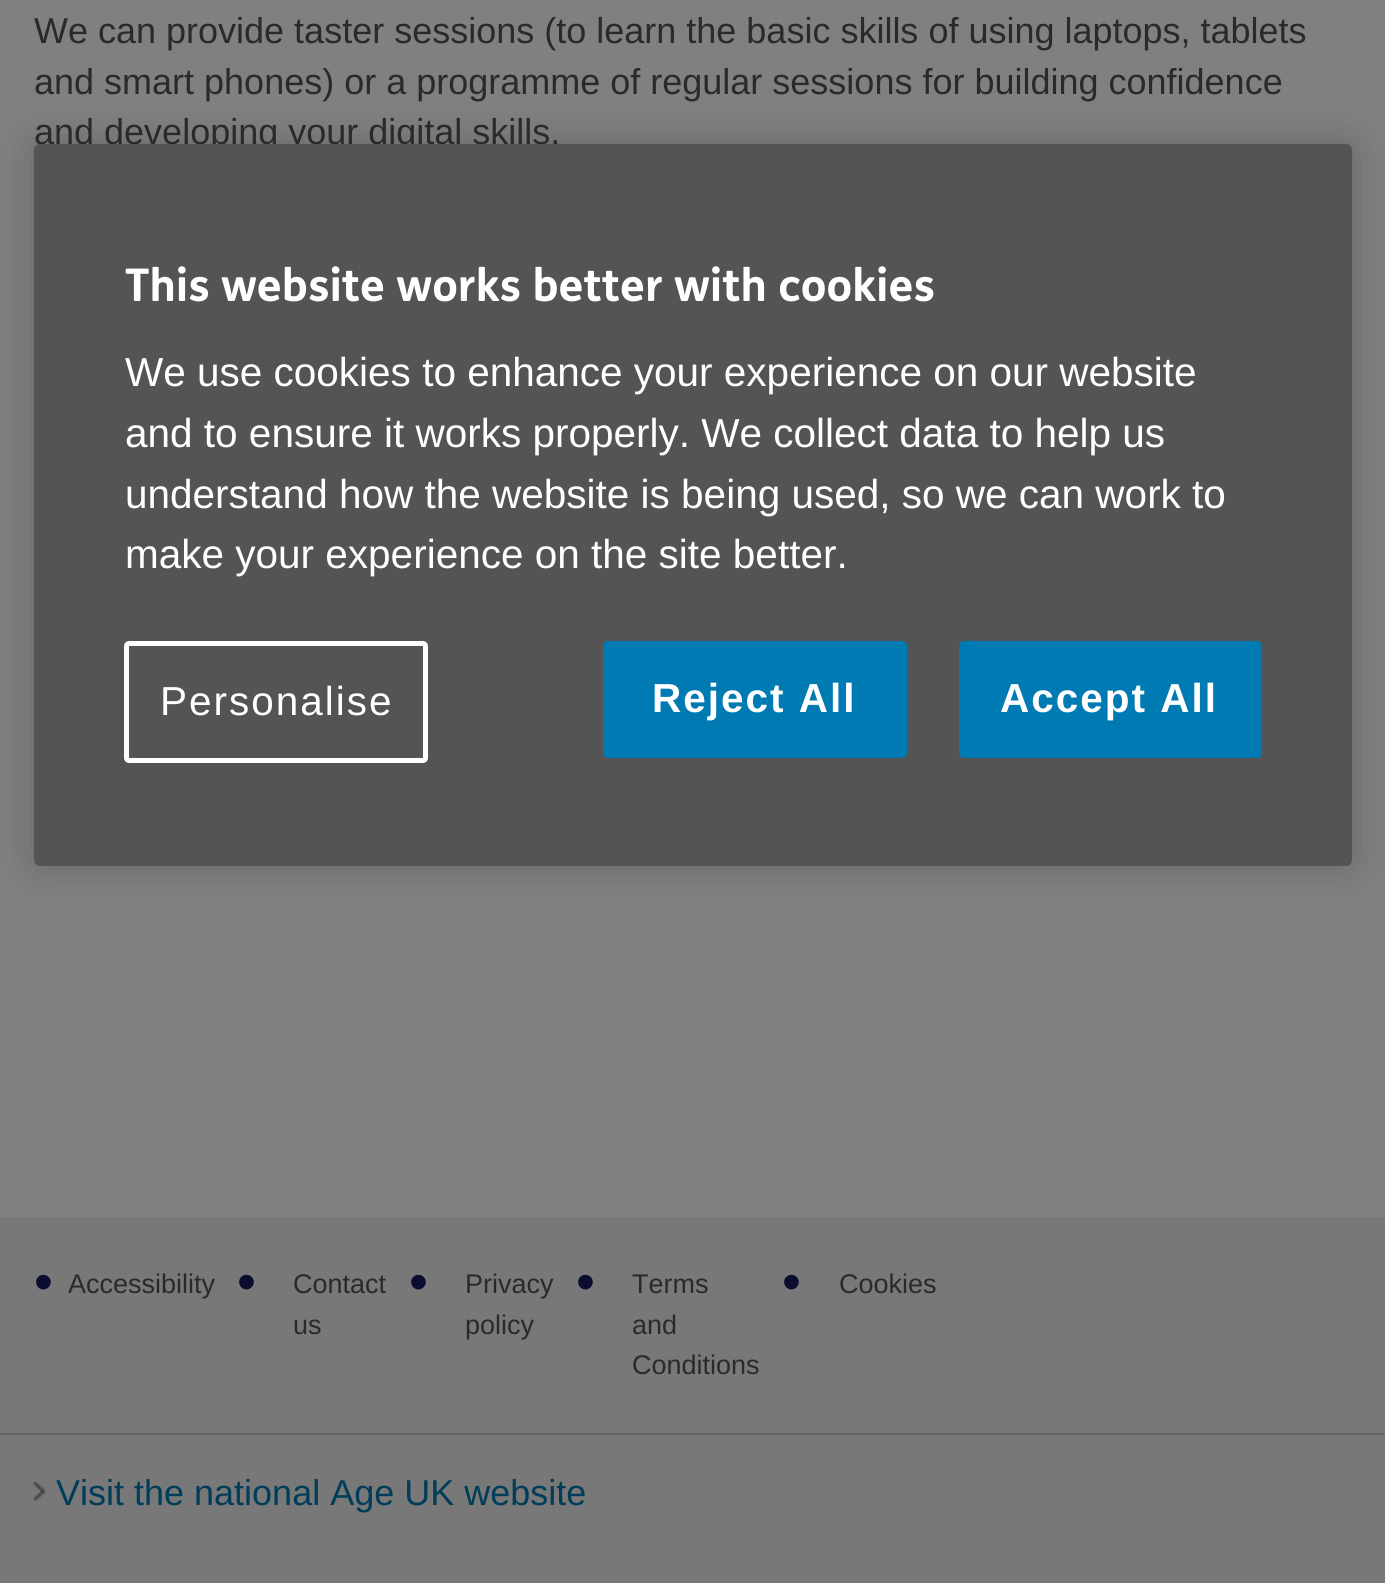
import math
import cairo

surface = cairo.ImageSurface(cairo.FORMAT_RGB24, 1385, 1583)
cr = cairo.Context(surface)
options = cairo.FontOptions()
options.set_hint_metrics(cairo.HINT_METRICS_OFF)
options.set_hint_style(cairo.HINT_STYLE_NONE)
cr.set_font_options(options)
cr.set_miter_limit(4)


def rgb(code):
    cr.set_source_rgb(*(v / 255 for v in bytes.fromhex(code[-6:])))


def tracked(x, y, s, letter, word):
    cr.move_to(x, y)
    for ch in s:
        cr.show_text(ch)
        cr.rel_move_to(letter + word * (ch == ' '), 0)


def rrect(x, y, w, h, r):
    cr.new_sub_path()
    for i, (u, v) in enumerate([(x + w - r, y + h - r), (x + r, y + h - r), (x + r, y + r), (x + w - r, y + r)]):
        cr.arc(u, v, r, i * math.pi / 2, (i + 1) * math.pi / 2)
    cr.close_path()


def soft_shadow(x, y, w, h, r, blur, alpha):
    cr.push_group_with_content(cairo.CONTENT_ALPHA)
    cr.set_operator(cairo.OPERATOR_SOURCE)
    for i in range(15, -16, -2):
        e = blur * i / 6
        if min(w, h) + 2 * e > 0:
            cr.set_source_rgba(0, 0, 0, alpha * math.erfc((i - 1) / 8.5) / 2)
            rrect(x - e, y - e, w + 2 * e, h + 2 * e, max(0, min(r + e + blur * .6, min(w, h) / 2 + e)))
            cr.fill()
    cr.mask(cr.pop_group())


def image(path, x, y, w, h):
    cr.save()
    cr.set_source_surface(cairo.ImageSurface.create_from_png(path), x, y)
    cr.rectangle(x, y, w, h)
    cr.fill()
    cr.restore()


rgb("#808080")
cr.paint()
rgb("#000000")
soft_shadow(34, 144, 1318, 722, 6, 20, 0.2)
rgb("#787878")
cr.rectangle(0, 1217, 1385, 366)
cr.fill()
rgb("#676666")
cr.rectangle(0, 1433, 1385, 2)
cr.fill()
image("img/1.png", 33, 1482, 12, 19)
cr.select_font_face("Liberation Sans")
cr.set_font_size(36)
rgb("#2a2a2a")
for x, y, s in [
    (34, 43, "We can provide taster sessions (to learn the basic skills of using laptops, tablets"),
    (34, 94, "and smart phones) or a programme of regular sessions for building confidence"),
    (34, 144, "and developing your digital skills."),
]:
    cr.move_to(x, y)
    cr.show_text(s)
rgb("#545454")
rrect(34, 144, 1318, 722, 6)
cr.fill()
cr.select_font_face("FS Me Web", cairo.FONT_SLANT_NORMAL, cairo.FONT_WEIGHT_BOLD)
cr.set_font_size(45)
rgb("#ffffff")
cr.move_to(125, 301)
cr.show_text("This website works better with cookies")
cr.select_font_face("Liberation Sans")
cr.set_font_size(40.5)
for x, y, s in [
    (125, 386, "We use cookies to enhance your experience on our website"),
    (125, 447, "and to ensure it works properly. We collect data to help us"),
    (125, 508, "understand how the website is being used, so we can work to"),
    (125, 568, "make your experience on the site better."),
]:
    cr.move_to(x, y)
    cr.show_text(s)
rrect(126.5, 643.5, 299, 117, 2.5)
cr.set_line_width(5)
cr.stroke()
tracked(160, 715, "Personalise", 2, 0)
rgb("#007ab2")
rrect(604, 642, 302, 115, 4)
cr.fill_preserve()
cr.set_line_width(2)
cr.stroke()
cr.select_font_face("Liberation Sans", cairo.FONT_SLANT_NORMAL, cairo.FONT_WEIGHT_BOLD)
rgb("#ffffff")
tracked(652, 712, "Reject All", 2, 0)
rgb("#007ab2")
rrect(960, 642, 301, 115, 4)
cr.fill_preserve()
cr.stroke()
rgb("#ffffff")
tracked(1000, 712, "Accept All", 2, 0)
cr.select_font_face("Liberation Sans")
cr.set_font_size(54)
rgb("#0a0c30")
cr.move_to(34, 1300)
cr.show_text("•")
cr.set_font_size(27)
rgb("#2a2a2a")
cr.move_to(68, 1293)
cr.show_text("Accessibility")
cr.set_font_size(54)
rgb("#0a0c30")
cr.move_to(237, 1300)
cr.show_text("•")
cr.set_font_size(27)
rgb("#2a2a2a")
cr.move_to(293, 1293)
cr.show_text("Contact")
cr.move_to(293, 1334)
cr.show_text("us")
cr.set_font_size(54)
rgb("#0a0c30")
cr.move_to(409, 1300)
cr.show_text("•")
cr.set_font_size(27)
rgb("#2a2a2a")
cr.move_to(465, 1293)
cr.show_text("Privacy")
cr.move_to(465, 1334)
cr.show_text("policy")
cr.set_font_size(54)
rgb("#0a0c30")
cr.move_to(576, 1300)
cr.show_text("•")
cr.set_font_size(27)
rgb("#2a2a2a")
for x, y, s in [
    (632, 1293, "Terms"),
    (632, 1334, "and"),
    (632, 1374, "Conditions"),
]:
    cr.move_to(x, y)
    cr.show_text(s)
cr.set_font_size(54)
rgb("#0a0c30")
cr.move_to(782, 1300)
cr.show_text("•")
cr.set_font_size(27)
rgb("#2a2a2a")
cr.move_to(839, 1293)
cr.show_text("Cookies")
cr.set_font_size(36)
rgb("#003d59")
cr.move_to(56, 1505)
cr.show_text("Visit the national Age UK website")
surface.write_to_png("page.png")
